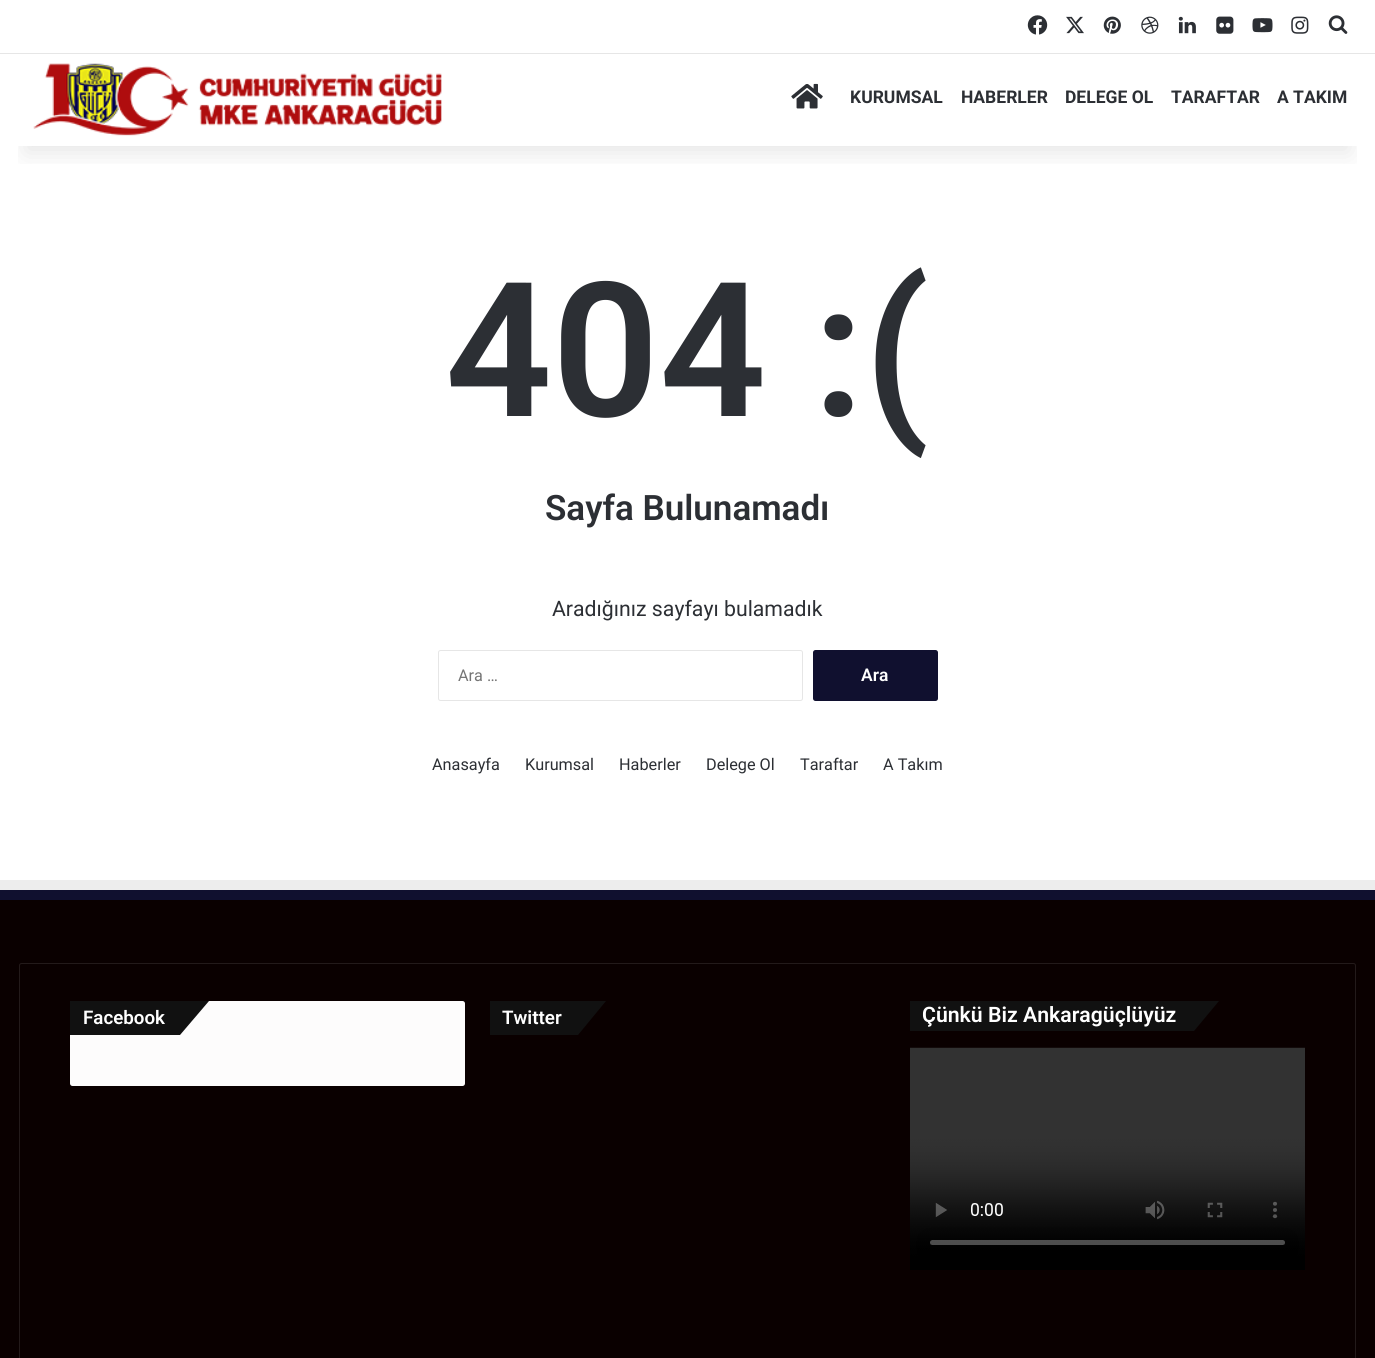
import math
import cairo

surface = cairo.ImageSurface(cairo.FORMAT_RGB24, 1375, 1358)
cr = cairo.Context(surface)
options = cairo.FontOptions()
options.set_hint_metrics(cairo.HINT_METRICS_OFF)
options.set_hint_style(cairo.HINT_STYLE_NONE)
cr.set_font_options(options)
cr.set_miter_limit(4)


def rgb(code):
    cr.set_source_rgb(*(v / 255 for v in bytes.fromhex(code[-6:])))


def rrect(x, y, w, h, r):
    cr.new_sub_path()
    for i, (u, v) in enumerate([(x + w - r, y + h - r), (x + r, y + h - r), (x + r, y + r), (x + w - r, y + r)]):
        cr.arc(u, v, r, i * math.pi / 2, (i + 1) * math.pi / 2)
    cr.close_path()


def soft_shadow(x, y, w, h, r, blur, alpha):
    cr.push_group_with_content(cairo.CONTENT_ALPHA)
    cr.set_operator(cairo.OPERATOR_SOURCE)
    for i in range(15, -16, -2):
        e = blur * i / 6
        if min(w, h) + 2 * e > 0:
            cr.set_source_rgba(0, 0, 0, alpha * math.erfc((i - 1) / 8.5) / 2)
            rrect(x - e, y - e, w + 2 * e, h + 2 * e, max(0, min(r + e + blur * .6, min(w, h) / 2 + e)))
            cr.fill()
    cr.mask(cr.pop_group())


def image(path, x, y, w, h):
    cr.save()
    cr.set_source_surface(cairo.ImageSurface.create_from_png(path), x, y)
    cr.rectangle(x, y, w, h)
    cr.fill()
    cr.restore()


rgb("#ffffff")
cr.paint()
cr.save()
cr.rectangle(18, 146, 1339, 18)
cr.clip()
rgb("#000000")
soft_shadow(25, 56, 1325, 97, 0, 12.5, 0.1)
cr.restore()
rgb("#e6e6e6")
cr.rectangle(0, 53, 1375, 1)
cr.fill()
image("img/1.png", 1027, 15, 21, 20)
image("img/2.png", 1066, 16, 18, 18)
image("img/3.png", 1103, 16, 18, 18)
image("img/4.png", 1141, 16, 18, 18)
image("img/5.png", 1178, 16, 18, 18)
image("img/6.png", 1216, 16, 18, 18)
image("img/7.png", 1252, 18, 21, 15)
image("img/8.png", 1291, 16, 18, 18)
image("img/9.png", 1328, 15, 20, 19)
image("img/10.png", 33, 63, 409, 73)
image("img/11.png", 791, 83, 32, 26)
rrect(438.5, 650.5, 364, 50, 2)
cr.set_line_width(1)
cr.stroke()
rgb("#10102f")
rrect(813, 650, 125, 51, 2.5)
cr.fill()
for x, y, w, h, color in [
    (0, 900, 1375, 458, "#0a0000"),
    (0, 880, 1375, 10, "#ededed"),
    (0, 890, 1375, 10, "#10102f"),
]:
    rgb(color)
    cr.rectangle(x, y, w, h)
    cr.fill()
rrect(19.5, 963.5, 1336, 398, 2)
rgb("#231a1a")
cr.stroke()
rgb("#fdfcfc")
rrect(70, 1001, 395, 85, 2.5)
cr.fill()
rgb("#111111")
cr.rectangle(70, 1001, 64, 34)
cr.fill()
cr.new_path()
cr.move_to(134, 1001)
cr.line_to(209, 1001)
cr.line_to(180, 1035)
cr.line_to(105, 1035)
cr.close_path()
cr.fill()
cr.rectangle(490, 1001, 57, 34)
cr.fill()
cr.new_path()
cr.move_to(547, 1001)
cr.line_to(606, 1001)
cr.line_to(578, 1035)
cr.line_to(519, 1035)
cr.close_path()
cr.fill()
cr.rectangle(910, 1001, 114, 30)
cr.fill()
cr.new_path()
cr.move_to(1024, 1001)
cr.line_to(1219, 1001)
cr.line_to(1194, 1031)
cr.line_to(999, 1031)
cr.close_path()
cr.fill()
image("img/12.png", 910, 1047, 395, 223)
cr.select_font_face("Roboto", cairo.FONT_SLANT_NORMAL, cairo.FONT_WEIGHT_BOLD)
cr.set_font_size(17.5)
rgb("#2c2f34")
for x, y, s in [
    (850, 103, "KURUMSAL"),
    (961, 103, "HABERLER"),
    (1065, 103, "DELEGE OL"),
    (1171, 103, "TARAFTAR"),
    (1277, 103, "A TAKIM"),
]:
    cr.move_to(x, y)
    cr.show_text(s)
cr.select_font_face("Roboto SemiBold")
cr.set_font_size(187.5)
cr.move_to(445, 416)
cr.show_text("404 :(")
cr.set_font_size(35)
cr.move_to(545, 520)
cr.show_text("Sayfa Bulunamadı")
cr.select_font_face("Roboto")
cr.set_font_size(21.25)
cr.move_to(552, 616)
cr.show_text("Aradığınız sayfayı bulamadık")
cr.set_font_size(16.25)
rgb("#757575")
cr.move_to(458, 681)
cr.show_text("Ara …")
cr.select_font_face("Roboto SemiBold")
cr.set_font_size(17.5)
rgb("#ffffff")
cr.move_to(861, 681)
cr.show_text("Ara")
cr.select_font_face("Roboto")
cr.set_font_size(16.25)
rgb("#2c2f34")
for x, y, s in [
    (432, 770, "Anasayfa"),
    (525, 770, "Kurumsal"),
    (619, 770, "Haberler"),
    (706, 770, "Delege Ol"),
    (800, 770, "Taraftar"),
    (883, 770, "A Takım"),
]:
    cr.move_to(x, y)
    cr.show_text(s)
cr.select_font_face("Roboto SemiBold")
cr.set_font_size(18.75)
rgb("#ffffff")
cr.move_to(83, 1024)
cr.show_text("Facebook")
cr.move_to(502, 1024)
cr.show_text("Twitter")
cr.set_font_size(21.25)
cr.move_to(922, 1022)
cr.show_text("Çünkü Biz Ankaragüçlüyüz")
surface.write_to_png("page.png")
